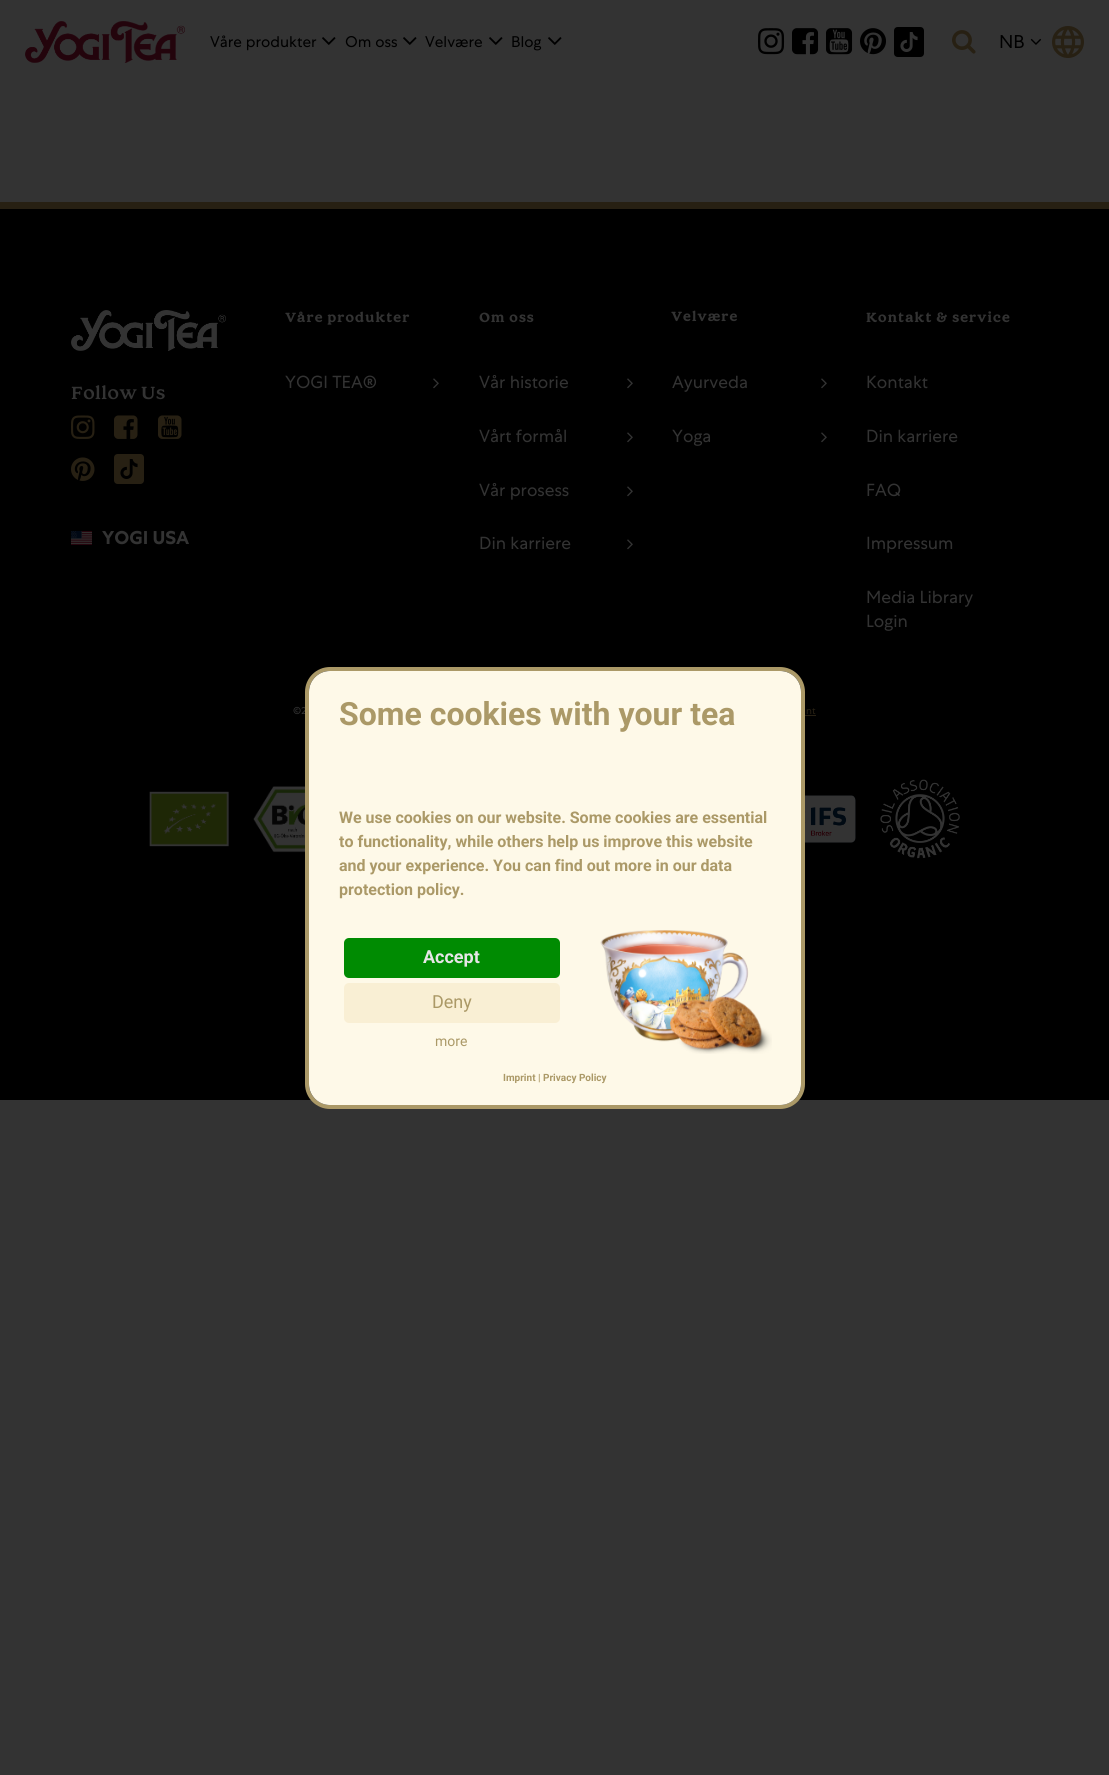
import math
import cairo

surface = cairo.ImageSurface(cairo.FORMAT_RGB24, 1109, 1775)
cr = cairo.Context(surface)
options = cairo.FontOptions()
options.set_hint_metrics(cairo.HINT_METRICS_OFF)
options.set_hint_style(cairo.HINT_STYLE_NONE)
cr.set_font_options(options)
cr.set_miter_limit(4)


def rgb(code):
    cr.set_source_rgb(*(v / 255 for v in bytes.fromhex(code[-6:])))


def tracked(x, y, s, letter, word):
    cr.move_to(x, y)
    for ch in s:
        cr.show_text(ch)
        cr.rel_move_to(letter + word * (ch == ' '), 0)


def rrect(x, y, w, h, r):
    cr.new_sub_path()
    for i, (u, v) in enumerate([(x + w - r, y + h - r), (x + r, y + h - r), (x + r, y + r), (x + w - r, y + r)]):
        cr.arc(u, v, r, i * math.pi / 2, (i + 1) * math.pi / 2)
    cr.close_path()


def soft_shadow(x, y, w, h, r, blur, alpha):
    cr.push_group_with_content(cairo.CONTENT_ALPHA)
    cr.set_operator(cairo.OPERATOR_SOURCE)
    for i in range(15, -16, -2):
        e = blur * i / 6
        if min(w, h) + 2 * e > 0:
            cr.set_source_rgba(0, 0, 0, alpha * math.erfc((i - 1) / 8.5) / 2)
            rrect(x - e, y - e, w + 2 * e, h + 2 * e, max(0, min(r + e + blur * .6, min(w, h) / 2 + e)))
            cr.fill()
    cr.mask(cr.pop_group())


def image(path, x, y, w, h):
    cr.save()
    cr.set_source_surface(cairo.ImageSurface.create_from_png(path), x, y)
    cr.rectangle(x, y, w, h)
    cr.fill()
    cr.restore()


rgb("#333333")
cr.paint()
image("img/1.png", 25, 21, 160, 42)
image("img/2.png", 322, 37, 14, 8)
image("img/2.png", 403, 37, 14, 8)
image("img/2.png", 489, 37, 14, 8)
image("img/2.png", 548, 37, 14, 8)
image("img/3.png", 758, 28, 27, 27)
image("img/4.png", 792, 28, 27, 27)
image("img/5.png", 826, 28, 27, 27)
image("img/6.png", 860, 28, 26, 27)
image("img/7.png", 894, 27, 30, 30)
image("img/8.png", 952, 30, 24, 24)
image("img/9.png", 1030, 38, 12, 7)
image("img/10.png", 1052, 26, 32, 32)
rgb("#000000")
cr.rectangle(0, 209, 1109, 891)
cr.fill()
rgb("#272013")
cr.rectangle(0, 202, 1109, 7)
cr.fill()
image("img/11.png", 71, 310, 155, 41)
image("img/12.png", 71, 415, 24, 24)
image("img/13.png", 114, 415, 24, 24)
image("img/14.png", 158, 415, 24, 24)
image("img/15.png", 71, 457, 24, 24)
image("img/16.png", 114, 454, 30, 30)
image("img/17.png", 71, 531, 21, 14)
image("img/18.png", 433, 378, 6, 11)
image("img/18.png", 627, 378, 6, 11)
image("img/18.png", 627, 432, 6, 11)
image("img/18.png", 627, 486, 6, 11)
image("img/18.png", 627, 539, 6, 11)
image("img/18.png", 821, 378, 6, 11)
image("img/18.png", 821, 432, 6, 11)
cr.rectangle(805, 715, 11, 1)
cr.fill()
image("img/19.png", 149, 791, 80, 56)
image("img/20.png", 253, 786, 52, 67)
image("img/21.png", 805, 795, 51, 48)
image("img/22.png", 880, 779, 80, 80)
cr.select_font_face("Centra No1")
cr.set_font_size(15.5)
rgb("#000000")
for x, y, s in [
    (210, 47, "Våre produkter"),
    (345, 47, "Om oss"),
    (425, 47, "Velvære"),
    (511, 47, "Blog"),
]:
    cr.move_to(x, y)
    cr.show_text(s)
cr.set_font_size(18.5)
cr.move_to(999, 48)
cr.show_text("NB")
cr.select_font_face("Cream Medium")
rgb("#333333")
cr.move_to(71, 399)
cr.show_text("Follow Us")
cr.select_font_face("Centra No1", cairo.FONT_SLANT_NORMAL, cairo.FONT_WEIGHT_BOLD)
cr.move_to(102, 544)
cr.show_text("YOGI USA")
cr.select_font_face("Cream", cairo.FONT_SLANT_NORMAL, cairo.FONT_WEIGHT_BOLD)
cr.set_font_size(13.4)
tracked(285, 322, "Våre produkter", 1, 0)
cr.select_font_face("Centra No1")
cr.set_font_size(17.5)
cr.move_to(285, 388)
cr.show_text("YOGI TEA®")
cr.select_font_face("Cream", cairo.FONT_SLANT_NORMAL, cairo.FONT_WEIGHT_BOLD)
cr.set_font_size(13.4)
tracked(479, 322, "Om oss", 1, 0)
cr.select_font_face("Centra No1")
cr.set_font_size(17.5)
for x, y, s in [
    (479, 388, "Vår historie"),
    (479, 442, "Vårt formål"),
    (479, 496, "Vår prosess"),
    (479, 549, "Din karriere"),
]:
    cr.move_to(x, y)
    cr.show_text(s)
cr.select_font_face("Cream", cairo.FONT_SLANT_NORMAL, cairo.FONT_WEIGHT_BOLD)
cr.set_font_size(13.4)
tracked(671, 321, "Velvære", 1, 0)
cr.select_font_face("Centra No1")
cr.set_font_size(17.5)
cr.move_to(672, 388)
cr.show_text("Ayurveda")
cr.move_to(672, 442)
cr.show_text("Yoga")
cr.select_font_face("Cream", cairo.FONT_SLANT_NORMAL, cairo.FONT_WEIGHT_BOLD)
cr.set_font_size(13.4)
tracked(866, 322, "Kontakt & service", 1, 0)
cr.select_font_face("Centra No1")
cr.set_font_size(17.5)
for x, y, s in [
    (866, 388, "Kontakt"),
    (866, 442, "Din karriere"),
    (866, 496, "FAQ"),
    (866, 549, "Impressum"),
    (866, 603, "Media Library"),
    (866, 627, "Login"),
]:
    cr.move_to(x, y)
    cr.show_text(s)
cr.set_font_size(10)
cr.move_to(293, 714)
cr.show_text("©2")
rgb("#272013")
cr.move_to(806, 714)
cr.show_text("nt")
rrect(307, 669, 496, 438, 23)
rgb("#ab9967")
cr.set_line_width(4)
cr.stroke()
cr.save()
rrect(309, 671, 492, 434, 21)
cr.clip()
rgb("#000000")
soft_shadow(309, 677, 492, 434, 0, 18, 0.3)
cr.restore()
rgb("#fef9e8")
rrect(309, 671, 492, 434, 21)
cr.fill()
cr.select_font_face("Roboto", cairo.FONT_SLANT_NORMAL, cairo.FONT_WEIGHT_BOLD)
cr.set_font_size(32)
rgb("#ab9967")
cr.move_to(339, 725)
cr.show_text("Some cookies with your tea")
cr.set_font_size(16)
for x, y, s in [
    (339, 823, "We use cookies on our website. Some cookies are essential"),
    (339, 847, "to functionality, while others help us improve this website"),
    (339, 871, "and your experience. You can find out more in our data"),
    (339, 895, "protection policy."),
]:
    cr.move_to(x, y)
    cr.show_text(s)
rgb("#008b02")
rrect(344, 938, 216, 40, 5)
cr.fill()
cr.set_font_size(18)
rgb("#e6e6e6")
cr.move_to(423, 963)
cr.show_text("Accept")
rgb("#f9efd4")
rrect(344, 983, 216, 40, 5)
cr.fill()
cr.select_font_face("Roboto")
rgb("#ab9967")
cr.move_to(432, 1008)
cr.show_text("Deny")
cr.set_font_size(14)
cr.move_to(435, 1046)
cr.show_text("more")
image("img/23.png", 600, 930, 172, 124)
cr.select_font_face("Roboto", cairo.FONT_SLANT_NORMAL, cairo.FONT_WEIGHT_BOLD)
cr.set_font_size(10)
cr.move_to(503, 1081)
cr.show_text("Imprint | Privacy Policy")
surface.write_to_png("page.png")
